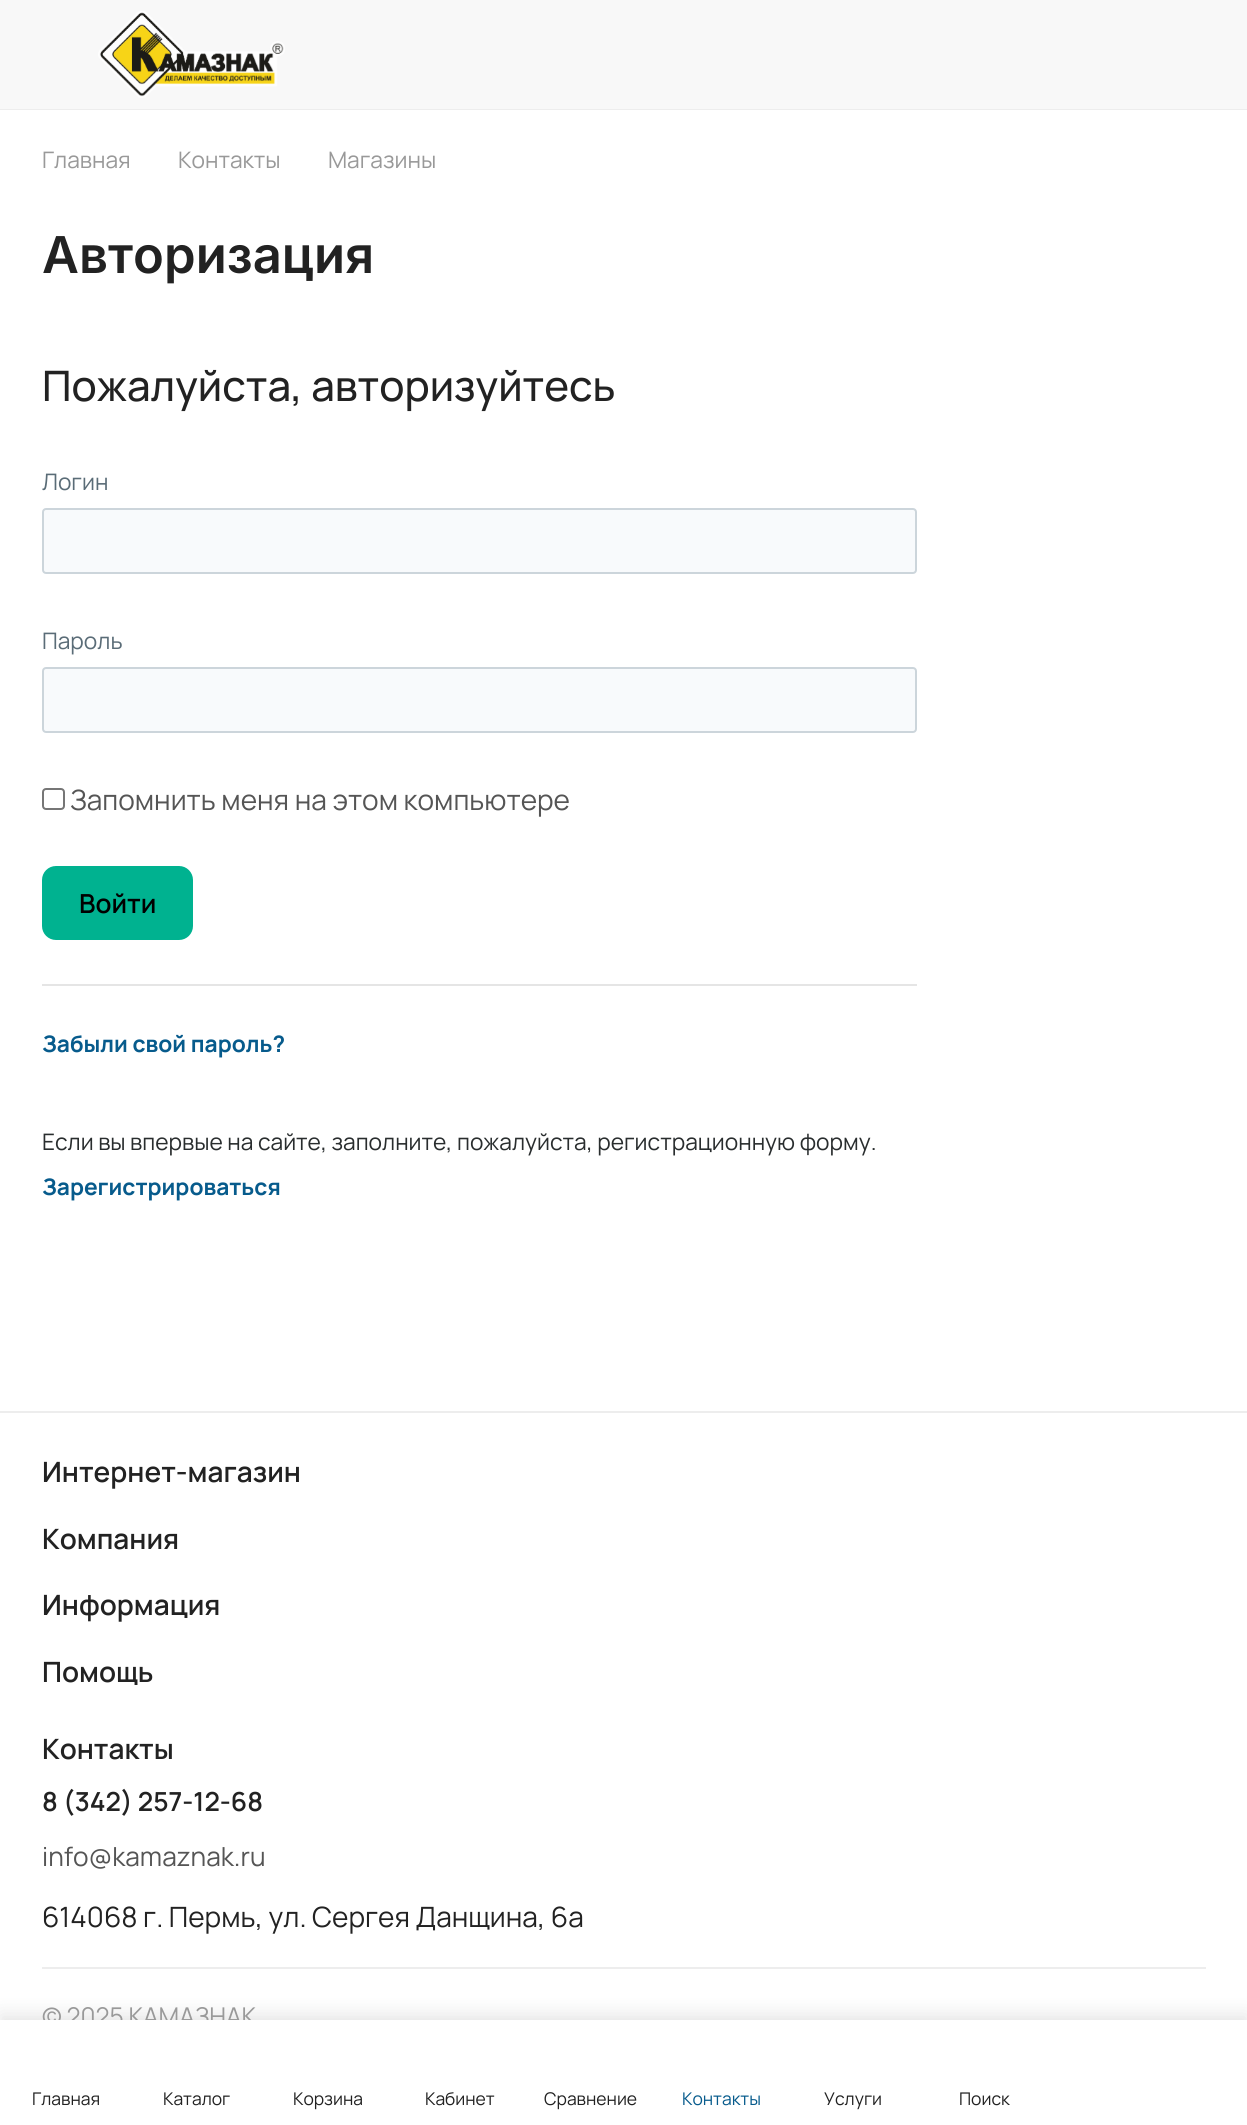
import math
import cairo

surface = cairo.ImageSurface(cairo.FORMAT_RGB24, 1247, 2125)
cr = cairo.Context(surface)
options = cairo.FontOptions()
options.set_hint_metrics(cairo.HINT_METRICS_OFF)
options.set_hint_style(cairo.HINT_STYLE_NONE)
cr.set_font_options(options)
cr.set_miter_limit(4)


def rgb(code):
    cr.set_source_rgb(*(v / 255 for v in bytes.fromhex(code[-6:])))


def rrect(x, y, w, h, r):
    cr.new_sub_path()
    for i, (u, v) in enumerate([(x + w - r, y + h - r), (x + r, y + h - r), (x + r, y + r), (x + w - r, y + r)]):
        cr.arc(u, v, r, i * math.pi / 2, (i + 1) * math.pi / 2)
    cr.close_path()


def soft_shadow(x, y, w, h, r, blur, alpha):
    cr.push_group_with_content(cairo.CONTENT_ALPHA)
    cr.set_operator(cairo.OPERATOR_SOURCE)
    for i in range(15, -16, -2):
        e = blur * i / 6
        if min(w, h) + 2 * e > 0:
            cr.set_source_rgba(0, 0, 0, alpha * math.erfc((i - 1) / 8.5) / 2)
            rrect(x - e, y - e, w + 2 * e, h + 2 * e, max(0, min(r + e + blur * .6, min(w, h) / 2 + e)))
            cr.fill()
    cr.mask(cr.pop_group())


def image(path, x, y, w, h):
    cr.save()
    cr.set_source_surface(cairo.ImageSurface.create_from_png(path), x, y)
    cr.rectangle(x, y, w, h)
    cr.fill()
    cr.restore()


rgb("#ffffff")
cr.paint()
rgb("#ededed")
cr.new_path()
cr.move_to(0, 108)
cr.line_to(0, 110)
cr.line_to(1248, 110)
cr.line_to(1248, 2)
cr.line_to(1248, 108)
cr.close_path()
cr.fill()
rgb("#f8f8f8")
cr.rectangle(0, 0, 1247, 109)
cr.fill()
image("img/1.png", 98, 11, 187, 87)
rgb("#f8fafc")
rrect(43, 509, 873, 64, 3)
cr.fill_preserve()
rgb("#ccd5db")
cr.stroke()
rgb("#f8fafc")
rrect(43, 668, 873, 64, 3)
cr.fill_preserve()
rgb("#ccd5db")
cr.stroke()
rrect(43, 789, 21, 20, 3)
rgb("#767676")
cr.stroke()
rgb("#00b290")
rrect(43, 867, 149, 72, 13)
cr.fill_preserve()
cr.stroke()
for x, y, w, h, color in [
    (42, 984, 875, 2, "#e5e5e5"),
    (0, 1411, 1247, 2, "#ededed"),
    (42, 1967, 1164, 2, "#ededed"),
]:
    rgb(color)
    cr.rectangle(x, y, w, h)
    cr.fill()
rgb("#000000")
soft_shadow(0, 2014, 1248, 107, 0, 9, 0.1)
cr.select_font_face("Manrope")
cr.set_font_size(22.75)
rgb("#999999")
for x, y, s in [
    (42, 168, "Главная"),
    (178, 168, "Контакты"),
    (328, 168, "Магазины"),
]:
    cr.move_to(x, y)
    cr.show_text(s)
cr.select_font_face("Inter SemiBold")
cr.set_font_size(50.75)
rgb("#222222")
cr.move_to(42, 273)
cr.show_text("Авторизация")
cr.select_font_face("Manrope Medium")
cr.set_font_size(42)
cr.move_to(42, 401)
cr.show_text("Пожалуйста, авторизуйтесь")
cr.select_font_face("Manrope")
cr.set_font_size(22.75)
rgb("#5a6c77")
cr.move_to(42, 490)
cr.show_text("Логин")
cr.move_to(42, 649)
cr.show_text("Пароль")
cr.set_font_size(28)
rgb("#555555")
cr.move_to(70, 810)
cr.show_text("Запомнить меня на этом компьютере")
cr.select_font_face("Manrope SemiBold")
cr.set_font_size(26.25)
rgb("#000000")
cr.move_to(79, 913)
cr.show_text("Войти")
cr.select_font_face("Manrope", cairo.FONT_SLANT_NORMAL, cairo.FONT_WEIGHT_BOLD)
cr.set_font_size(22.75)
rgb("#075b8c")
cr.move_to(42, 1052)
cr.show_text("Забыли свой пароль?")
cr.select_font_face("Manrope")
rgb("#292d2e")
cr.move_to(42, 1150)
cr.show_text("Если вы впервые на сайте, заполните, пожалуйста, регистрационную форму.")
cr.select_font_face("Manrope", cairo.FONT_SLANT_NORMAL, cairo.FONT_WEIGHT_BOLD)
rgb("#075b8c")
cr.move_to(42, 1195)
cr.show_text("Зарегистрироваться")
cr.select_font_face("Manrope SemiBold")
cr.set_font_size(28)
rgb("#222222")
for x, y, s in [
    (42, 1482, "Интернет-магазин"),
    (42, 1549, "Компания"),
    (42, 1615, "Информация"),
    (42, 1682, "Помощь"),
    (42, 1759, "Контакты"),
]:
    cr.move_to(x, y)
    cr.show_text(s)
cr.set_font_size(26.25)
cr.move_to(42, 1811)
cr.show_text("8 (342) 257-12-68")
cr.select_font_face("Manrope")
rgb("#555555")
cr.move_to(42, 1866)
cr.show_text("info@kamaznak.ru")
cr.set_font_size(28)
rgb("#222222")
cr.move_to(42, 1927)
cr.show_text("614068 г. Пермь, ул. Сергея Данщина, 6а")
cr.set_font_size(24.5)
rgb("#999999")
cr.move_to(42, 2025)
cr.show_text("© 2025 КАМАЗНАК")
rgb("#ffffff")
cr.rectangle(0, 2020, 1247, 105)
cr.fill()
cr.set_font_size(17.5)
rgb("#222222")
for x, y, s in [
    (32, 2105, "Главная"),
    (163, 2105, "Каталог"),
    (293, 2105, "Корзина"),
    (425, 2105, "Кабинет"),
    (544, 2105, "Сравнение"),
]:
    cr.move_to(x, y)
    cr.show_text(s)
rgb("#075b8c")
cr.move_to(682, 2105)
cr.show_text("Контакты")
rgb("#222222")
cr.move_to(824, 2105)
cr.show_text("Услуги")
cr.move_to(959, 2105)
cr.show_text("Поиск")
surface.write_to_png("page.png")
